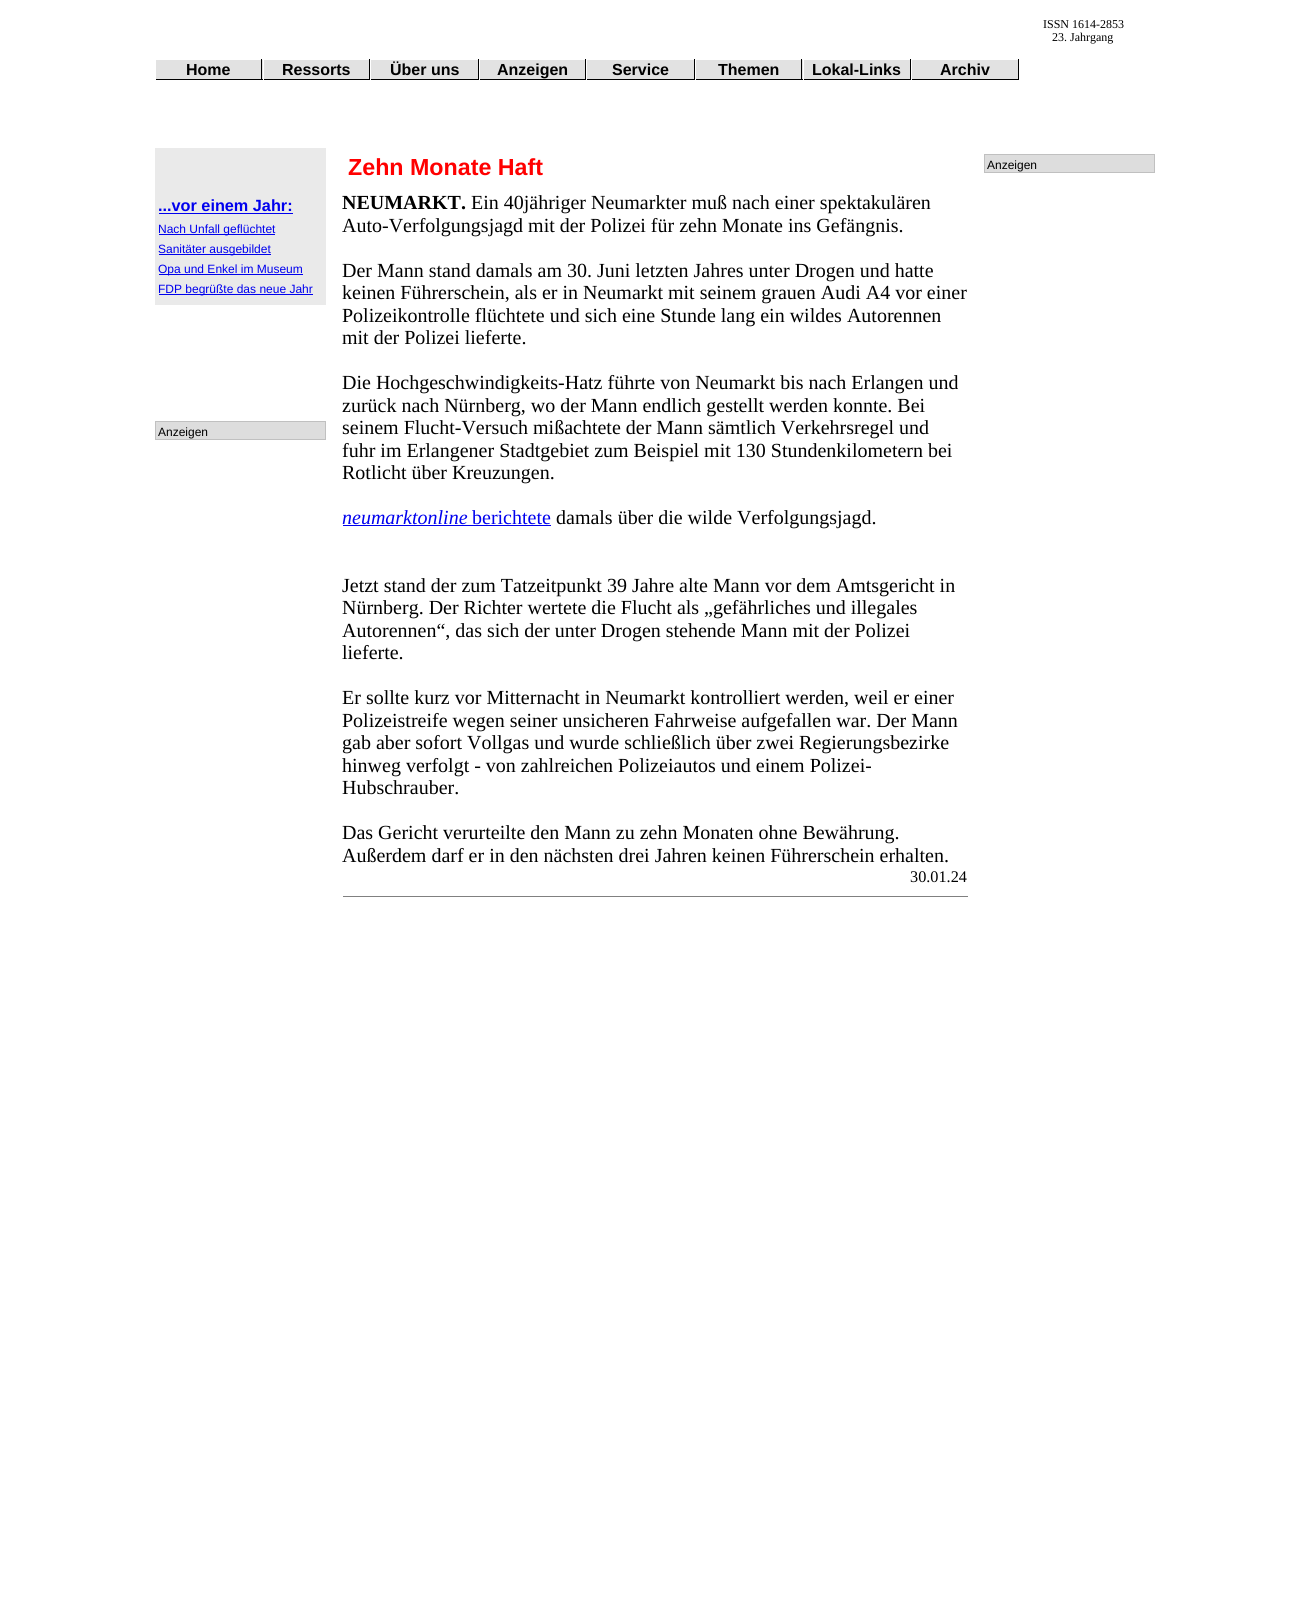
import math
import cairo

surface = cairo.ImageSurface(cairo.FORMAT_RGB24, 1308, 1613)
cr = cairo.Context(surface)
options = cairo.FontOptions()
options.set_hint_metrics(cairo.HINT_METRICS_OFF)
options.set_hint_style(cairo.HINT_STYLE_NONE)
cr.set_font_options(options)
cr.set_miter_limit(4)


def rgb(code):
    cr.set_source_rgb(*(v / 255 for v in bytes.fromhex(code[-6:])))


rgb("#ffffff")
cr.paint()
for x, y, w, h, color in [
    (156, 60, 107, 19, "#e2e2e2"),
    (261, 59, 1, 21, "#000000"),
    (155, 79, 108, 1, "#000000"),
    (155, 79, 1, 1, "#ffffff"),
    (264, 60, 105, 19, "#e2e2e2"),
    (369, 59, 1, 21, "#000000"),
    (263, 79, 107, 1, "#000000"),
    (263, 79, 1, 1, "#ffffff"),
    (371, 60, 107, 19, "#e2e2e2"),
    (478, 59, 1, 21, "#000000"),
    (370, 79, 109, 1, "#000000"),
    (370, 79, 1, 1, "#ffffff"),
    (480, 60, 105, 19, "#e2e2e2"),
    (585, 59, 1, 21, "#000000"),
    (479, 79, 107, 1, "#000000"),
    (479, 79, 1, 1, "#ffffff"),
    (587, 60, 107, 19, "#e2e2e2"),
    (694, 59, 1, 21, "#000000"),
    (586, 79, 109, 1, "#000000"),
    (586, 79, 1, 1, "#ffffff"),
    (696, 60, 107, 19, "#e2e2e2"),
    (801, 59, 1, 21, "#000000"),
    (695, 79, 108, 1, "#000000"),
    (695, 79, 1, 1, "#ffffff"),
    (804, 60, 106, 19, "#e2e2e2"),
    (910, 59, 1, 21, "#000000"),
    (803, 79, 108, 1, "#000000"),
    (803, 79, 1, 1, "#ffffff"),
    (912, 60, 106, 19, "#e2e2e2"),
    (1018, 59, 1, 21, "#000000"),
    (911, 79, 108, 1, "#000000"),
    (911, 79, 1, 1, "#ffffff"),
    (343, 525, 208, 1, "#0000ee"),
    (343, 896, 625, 1, "#808080"),
]:
    rgb(color)
    cr.rectangle(x, y, w, h)
    cr.fill()
rgb("#dddddd")
cr.rectangle(984.5, 154.5, 170, 18)
cr.fill_preserve()
rgb("#c0c0c0")
cr.set_line_width(1)
cr.stroke()
for x, y, w, h, color in [
    (155, 148, 171, 157, "#eaeaea"),
    (159, 213, 134, 1, "#0000ee"),
    (159, 234, 116, 1, "#0000ee"),
    (159, 254, 112, 1, "#0000ee"),
    (159, 274, 144, 1, "#0000ee"),
    (159, 294, 154, 1, "#0000ee"),
]:
    rgb(color)
    cr.rectangle(x, y, w, h)
    cr.fill()
rgb("#dddddd")
cr.rectangle(155.5, 421.5, 170, 18)
cr.fill_preserve()
rgb("#c0c0c0")
cr.stroke()
cr.select_font_face("Liberation Serif")
cr.set_font_size(12)
rgb("#000000")
cr.move_to(1043, 28)
cr.show_text("ISSN 1614-2853")
cr.move_to(1052, 41)
cr.show_text("23. Jahrgang")
cr.select_font_face("Liberation Sans", cairo.FONT_SLANT_NORMAL, cairo.FONT_WEIGHT_BOLD)
cr.set_font_size(16)
for x, y, s in [
    (186, 75, "Home"),
    (282, 75, "Ressorts"),
    (390, 75, "Über uns"),
    (497, 75, "Anzeigen"),
    (612, 75, "Service"),
    (718, 75, "Themen"),
    (812, 75, "Lokal-Links"),
    (940, 75, "Archiv"),
]:
    cr.move_to(x, y)
    cr.show_text(s)
cr.set_font_size(23.25)
rgb("#ff0000")
cr.move_to(348, 175)
cr.show_text("Zehn Monate Haft")
cr.select_font_face("Liberation Serif", cairo.FONT_SLANT_NORMAL, cairo.FONT_WEIGHT_BOLD)
cr.set_font_size(20)
rgb("#000000")
cr.move_to(342, 209)
cr.show_text("NEUMARKT.")
cr.select_font_face("Liberation Serif")
for x, y, s in [
    (471, 209, "Ein 40jähriger Neumarkter muß nach einer spektakulären"),
    (342, 232, "Auto-Verfolgungsjagd mit der Polizei für zehn Monate ins Gefängnis."),
    (342, 277, "Der Mann stand damals am 30. Juni letzten Jahres unter Drogen und hatte"),
    (342, 299, "keinen Führerschein, als er in Neumarkt mit seinem grauen Audi A4 vor einer"),
    (342, 322, "Polizeikontrolle flüchtete und sich eine Stunde lang ein wildes Autorennen"),
    (342, 344, "mit der Polizei lieferte."),
    (342, 389, "Die Hochgeschwindigkeits-Hatz führte von Neumarkt bis nach Erlangen und"),
    (342, 412, "zurück nach Nürnberg, wo der Mann endlich gestellt werden konnte. Bei"),
    (342, 434, "seinem Flucht-Versuch mißachtete der Mann sämtlich Verkehrsregel und"),
    (342, 457, "fuhr im Erlangener Stadtgebiet zum Beispiel mit 130 Stundenkilometern bei"),
    (342, 479, "Rotlicht über Kreuzungen."),
]:
    cr.move_to(x, y)
    cr.show_text(s)
cr.select_font_face("Liberation Serif", cairo.FONT_SLANT_ITALIC)
rgb("#0000ee")
cr.move_to(342, 524)
cr.show_text("neumarktonline")
cr.select_font_face("Liberation Serif")
cr.move_to(472, 524)
cr.show_text("berichtete")
rgb("#000000")
for x, y, s in [
    (556, 524, "damals über die wilde Verfolgungsjagd."),
    (342, 592, "Jetzt stand der zum Tatzeitpunkt 39 Jahre alte Mann vor dem Amtsgericht in"),
    (342, 614, "Nürnberg. Der Richter wertete die Flucht als „gefährliches und illegales"),
    (342, 637, "Autorennen“, das sich der unter Drogen stehende Mann mit der Polizei"),
    (342, 659, "lieferte."),
    (342, 704, "Er sollte kurz vor Mitternacht in Neumarkt kontrolliert werden, weil er einer"),
    (342, 727, "Polizeistreife wegen seiner unsicheren Fahrweise aufgefallen war. Der Mann"),
    (342, 749, "gab aber sofort Vollgas und wurde schließlich über zwei Regierungsbezirke"),
    (342, 772, "hinweg verfolgt - von zahlreichen Polizeiautos und einem Polizei-"),
    (342, 794, "Hubschrauber."),
    (342, 839, "Das Gericht verurteilte den Mann zu zehn Monaten ohne Bewährung."),
    (342, 862, "Außerdem darf er in den nächsten drei Jahren keinen Führerschein erhalten."),
]:
    cr.move_to(x, y)
    cr.show_text(s)
cr.set_font_size(16.25)
cr.move_to(910, 882)
cr.show_text("30.01.24")
cr.select_font_face("Liberation Sans")
cr.set_font_size(12)
cr.move_to(987, 169)
cr.show_text("Anzeigen")
cr.select_font_face("Liberation Sans", cairo.FONT_SLANT_NORMAL, cairo.FONT_WEIGHT_BOLD)
cr.set_font_size(16.25)
rgb("#0000ee")
cr.move_to(158, 211)
cr.show_text("...vor einem Jahr:")
cr.select_font_face("Liberation Sans")
cr.set_font_size(12)
for x, y, s in [
    (158, 233, "Nach Unfall geflüchtet"),
    (158, 253, "Sanitäter ausgebildet"),
    (158, 273, "Opa und Enkel im Museum"),
    (158, 293, "FDP begrüßte das neue Jahr"),
]:
    cr.move_to(x, y)
    cr.show_text(s)
rgb("#000000")
cr.move_to(158, 436)
cr.show_text("Anzeigen")
surface.write_to_png("page.png")
